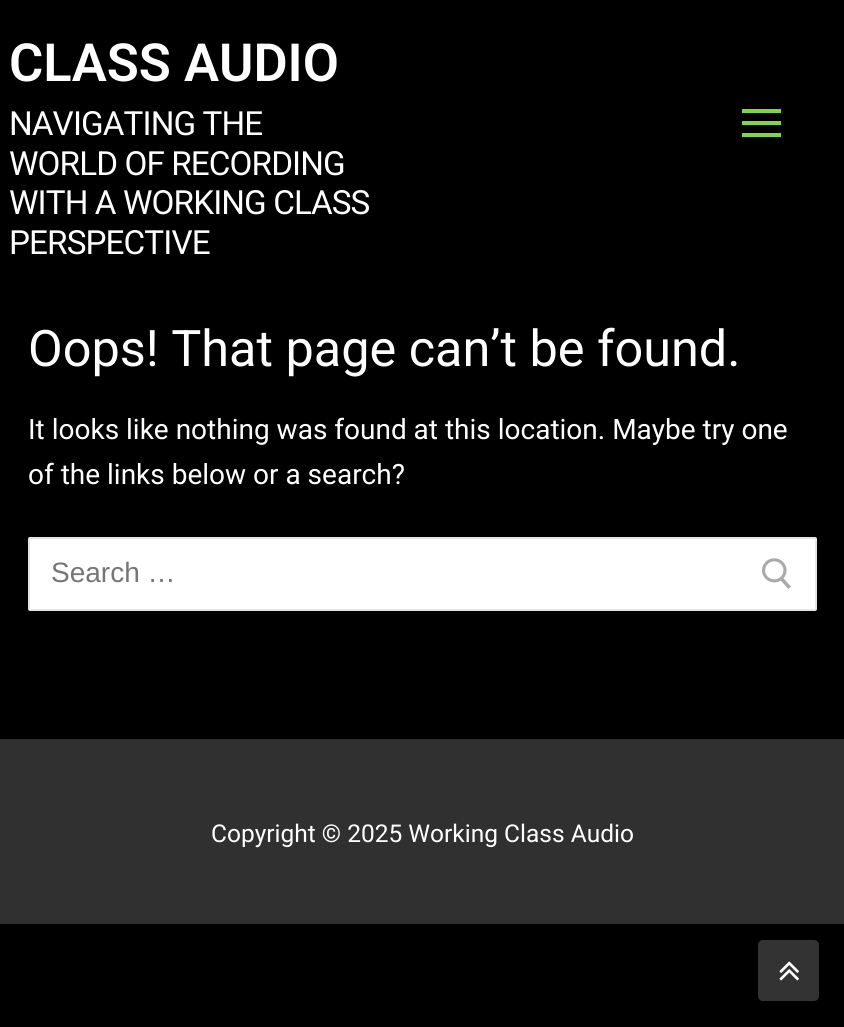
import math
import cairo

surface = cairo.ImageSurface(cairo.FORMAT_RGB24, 844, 1027)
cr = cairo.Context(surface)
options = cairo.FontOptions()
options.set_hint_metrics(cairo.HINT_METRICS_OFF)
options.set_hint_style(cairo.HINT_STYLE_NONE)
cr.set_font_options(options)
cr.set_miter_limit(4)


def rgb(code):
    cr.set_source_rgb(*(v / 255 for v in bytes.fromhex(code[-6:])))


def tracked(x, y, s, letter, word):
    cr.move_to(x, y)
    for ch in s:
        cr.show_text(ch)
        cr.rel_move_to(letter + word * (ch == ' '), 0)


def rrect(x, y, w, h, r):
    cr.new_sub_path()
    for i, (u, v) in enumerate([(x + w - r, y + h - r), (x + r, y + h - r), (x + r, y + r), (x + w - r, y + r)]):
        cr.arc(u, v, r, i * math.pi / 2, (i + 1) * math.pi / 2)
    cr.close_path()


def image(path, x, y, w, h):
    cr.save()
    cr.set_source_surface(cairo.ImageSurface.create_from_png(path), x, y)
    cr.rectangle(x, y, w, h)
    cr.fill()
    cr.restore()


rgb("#000000")
cr.paint()
for x, y, w, h, color in [
    (742, 121, 39, 4, "#81d742"),
    (742, 109, 39, 4, "#81d742"),
    (742, 133, 39, 4, "#81d742"),
]:
    rgb(color)
    cr.rectangle(x, y, w, h)
    cr.fill()
rgb("#ffffff")
rrect(29, 538, 787, 72, 1)
cr.fill_preserve()
rgb("#e5e5e5")
cr.stroke()
image("img/1.png", 762, 558, 29, 31)
rgb("#303030")
cr.rectangle(0, 739, 844, 185)
cr.fill()
rgb("#333333")
rrect(758, 940, 61, 61, 5)
cr.fill()
image("img/2.png", 779, 961, 20, 20)
cr.select_font_face("Roboto SemiBold")
cr.set_font_size(52.5)
rgb("#ffffff")
cr.move_to(9, 81)
cr.show_text("CLASS AUDIO")
cr.select_font_face("Roboto")
cr.set_font_size(33.25)
for x, y, s in [
    (9, 135, "NAVIGATING THE"),
    (9, 175, "WORLD OF RECORDING"),
    (9, 214, "WITH A WORKING CLASS"),
    (9, 254, "PERSPECTIVE"),
]:
    tracked(x, y, s, -0.9, 0)
cr.set_font_size(50.4)
cr.move_to(28, 366)
cr.show_text("Oops! That page can’t be found.")
cr.set_font_size(28)
cr.move_to(28, 439)
cr.show_text("It looks like nothing was found at this location. Maybe try one")
cr.move_to(28, 484)
cr.show_text("of the links below or a search?")
cr.select_font_face("Liberation Sans")
rgb("#757575")
cr.move_to(51, 582)
cr.show_text("Search …")
cr.select_font_face("Roboto")
cr.set_font_size(24.5)
rgb("#ffffff")
cr.move_to(211, 842)
cr.show_text("Copyright © 2025 Working Class Audio")
surface.write_to_png("page.png")
